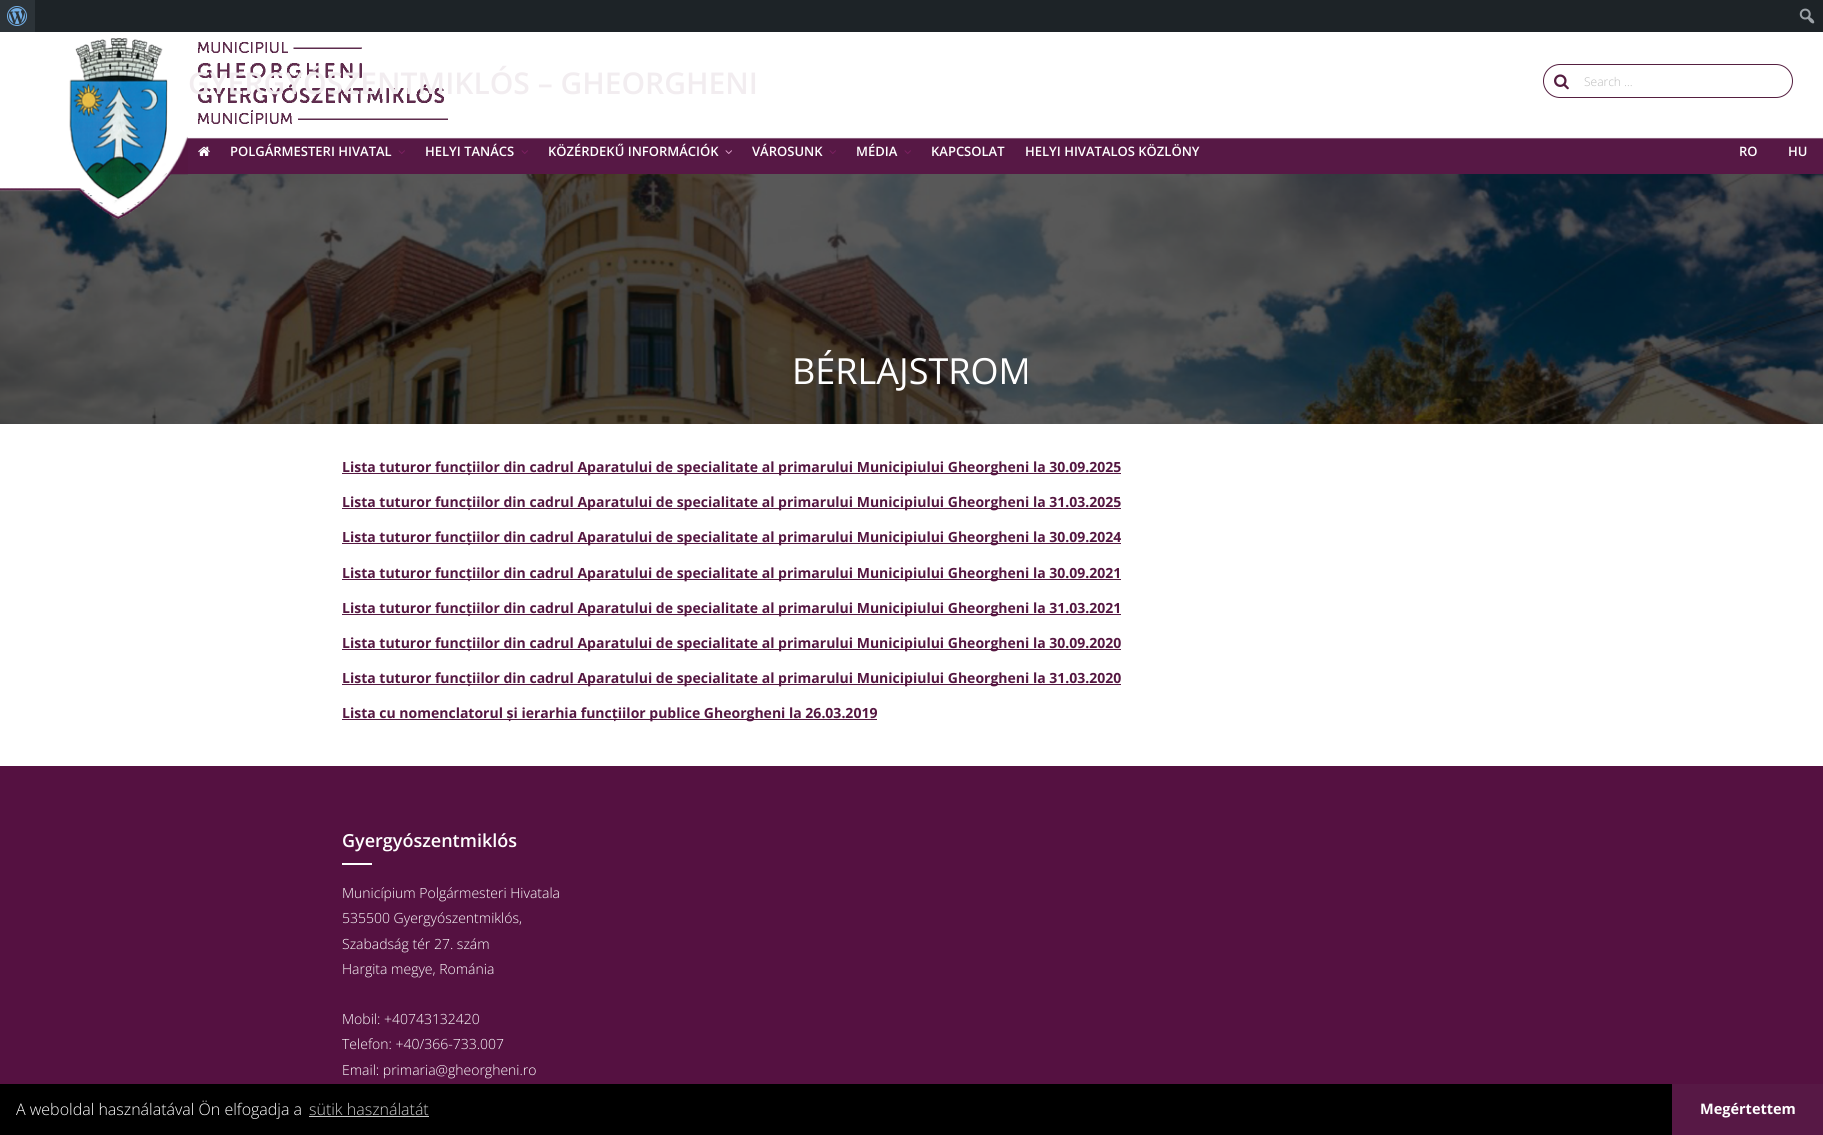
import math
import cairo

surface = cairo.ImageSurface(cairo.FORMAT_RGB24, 1823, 1135)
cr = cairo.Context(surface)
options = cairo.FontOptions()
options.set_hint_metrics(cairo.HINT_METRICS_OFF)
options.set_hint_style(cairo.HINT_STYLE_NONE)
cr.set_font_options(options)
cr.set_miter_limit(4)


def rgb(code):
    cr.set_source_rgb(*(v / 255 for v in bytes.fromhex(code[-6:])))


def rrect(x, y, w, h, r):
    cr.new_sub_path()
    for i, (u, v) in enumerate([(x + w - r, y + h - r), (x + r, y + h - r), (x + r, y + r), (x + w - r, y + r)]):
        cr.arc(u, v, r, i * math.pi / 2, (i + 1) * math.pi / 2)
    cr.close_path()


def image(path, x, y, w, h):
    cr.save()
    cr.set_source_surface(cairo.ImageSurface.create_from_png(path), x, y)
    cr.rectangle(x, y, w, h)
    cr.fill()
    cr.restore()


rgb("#ffffff")
cr.paint()
rgb("#1d2327")
cr.rectangle(35, 0, 1788, 32)
cr.fill()
rgb("#2c3338")
cr.rectangle(0, 0, 35, 32)
cr.fill()
image("img/1.png", 7, 6, 20, 20)
image("img/2.png", 1799, 8, 16, 16)
image("img/4.png", 165, 173, 23, 1)
image("img/11.png", 0, 174, 1823, 250)
image("img/3.png", 0, 38, 188, 181)
image("img/5.png", 188, 137, 1635, 37)
image("img/6.png", 198, 42, 250, 82)
rrect(1543.5, 64.5, 249, 33, 16.5)
rgb("#551f40")
cr.set_line_width(1)
cr.stroke()
image("img/7.png", 1554, 74, 15, 16)
image("img/8.png", 198, 146, 12, 10)
image("img/9.png", 398, 150, 7, 4)
image("img/9.png", 521, 150, 7, 4)
image("img/10.png", 725, 150, 7, 4)
image("img/9.png", 829, 150, 7, 4)
image("img/9.png", 904, 150, 7, 4)
for x, y, w, h, color in [
    (342, 473, 779, 1, "#551741"),
    (342, 508, 779, 1, "#551741"),
    (342, 543, 779, 1, "#551741"),
    (342, 579, 779, 1, "#551741"),
    (342, 614, 779, 1, "#551741"),
    (342, 649, 779, 1, "#551741"),
    (342, 684, 779, 1, "#551741"),
    (342, 719, 535, 1, "#551741"),
    (0, 766, 1823, 318, "#551141"),
    (342, 863, 30, 2, "#ffffff"),
    (0, 1084, 1672, 51, "#000000"),
    (309, 1116, 120, 1, "#cccccc"),
    (1672, 1084, 151, 51, "#571845"),
]:
    rgb(color)
    cr.rectangle(x, y, w, h)
    cr.fill()
cr.select_font_face("Open Sans SemiBold")
cr.set_font_size(30)
rgb("#f2edf0")
cr.move_to(188, 94)
cr.show_text("GYERGYÓSZENTMIKLÓS – GHEORGHENI")
cr.select_font_face("Open Sans Light")
cr.set_font_size(12)
rgb("#bababa")
cr.move_to(1584, 86)
cr.show_text("Search …")
cr.select_font_face("Open Sans SemiBold")
cr.set_font_size(13)
rgb("#ffffff")
for x, y, s in [
    (230, 156, "POLGÁRMESTERI HIVATAL"),
    (425, 156, "HELYI TANÁCS"),
    (548, 156, "KÖZÉRDEKŰ INFORMÁCIÓK"),
    (752, 156, "VÁROSUNK"),
    (856, 156, "MÉDIA"),
    (931, 156, "KAPCSOLAT"),
    (1025, 156, "HELYI HIVATALOS KÖZLÖNY"),
    (1739, 156, "RO"),
    (1788, 156, "HU"),
]:
    cr.move_to(x, y)
    cr.show_text(s)
cr.select_font_face("Open Sans")
cr.set_font_size(36)
cr.move_to(792, 384)
cr.show_text("BÉRLAJSTROM")
cr.select_font_face("Open Sans", cairo.FONT_SLANT_NORMAL, cairo.FONT_WEIGHT_BOLD)
cr.set_font_size(14)
rgb("#551741")
for x, y, s in [
    (342, 472, "Lista tuturor funcțiilor din cadrul Aparatului de specialitate al primarului Municipiului Gheorgheni la 30.09.2025"),
    (342, 507, "Lista tuturor funcțiilor din cadrul Aparatului de specialitate al primarului Municipiului Gheorgheni la 31.03.2025"),
    (342, 542, "Lista tuturor funcțiilor din cadrul Aparatului de specialitate al primarului Municipiului Gheorgheni la 30.09.2024"),
    (342, 578, "Lista tuturor funcțiilor din cadrul Aparatului de specialitate al primarului Municipiului Gheorgheni la 30.09.2021"),
    (342, 613, "Lista tuturor funcțiilor din cadrul Aparatului de specialitate al primarului Municipiului Gheorgheni la 31.03.2021"),
    (342, 648, "Lista tuturor funcțiilor din cadrul Aparatului de specialitate al primarului Municipiului Gheorgheni la 30.09.2020"),
    (342, 683, "Lista tuturor funcțiilor din cadrul Aparatului de specialitate al primarului Municipiului Gheorgheni la 31.03.2020"),
    (342, 718, "Lista cu nomenclatorul și ierarhia funcțiilor publice Gheorgheni la 26.03.2019"),
]:
    cr.move_to(x, y)
    cr.show_text(s)
cr.select_font_face("Open Sans SemiBold")
cr.set_font_size(18)
rgb("#ffffff")
cr.move_to(342, 847)
cr.show_text("Gyergyószentmiklós")
cr.select_font_face("Open Sans Light")
cr.set_font_size(14)
for x, y, s in [
    (342, 898, "Municípium Polgármesteri Hivatala"),
    (342, 923, "535500 Gyergyószentmiklós,"),
    (342, 949, "Szabadság tér 27. szám"),
    (342, 974, "Hargita megye, Románia"),
    (342, 1024, "Mobil: +40743132420"),
    (342, 1049, "Telefon: +40/366-733.007"),
    (342, 1075, "Email: primaria@gheorgheni.ro"),
]:
    cr.move_to(x, y)
    cr.show_text(s)
cr.set_font_size(16)
cr.move_to(16, 1115)
cr.show_text("A weboldal használatával Ön elfogadja a")
rgb("#cccccc")
cr.move_to(309, 1115)
cr.show_text("sütik használatát")
cr.select_font_face("Open Sans", cairo.FONT_SLANT_NORMAL, cairo.FONT_WEIGHT_BOLD)
cr.set_font_size(14.5)
rgb("#ffffff")
cr.move_to(1700, 1114)
cr.show_text("Megértettem")
surface.write_to_png("page.png")
